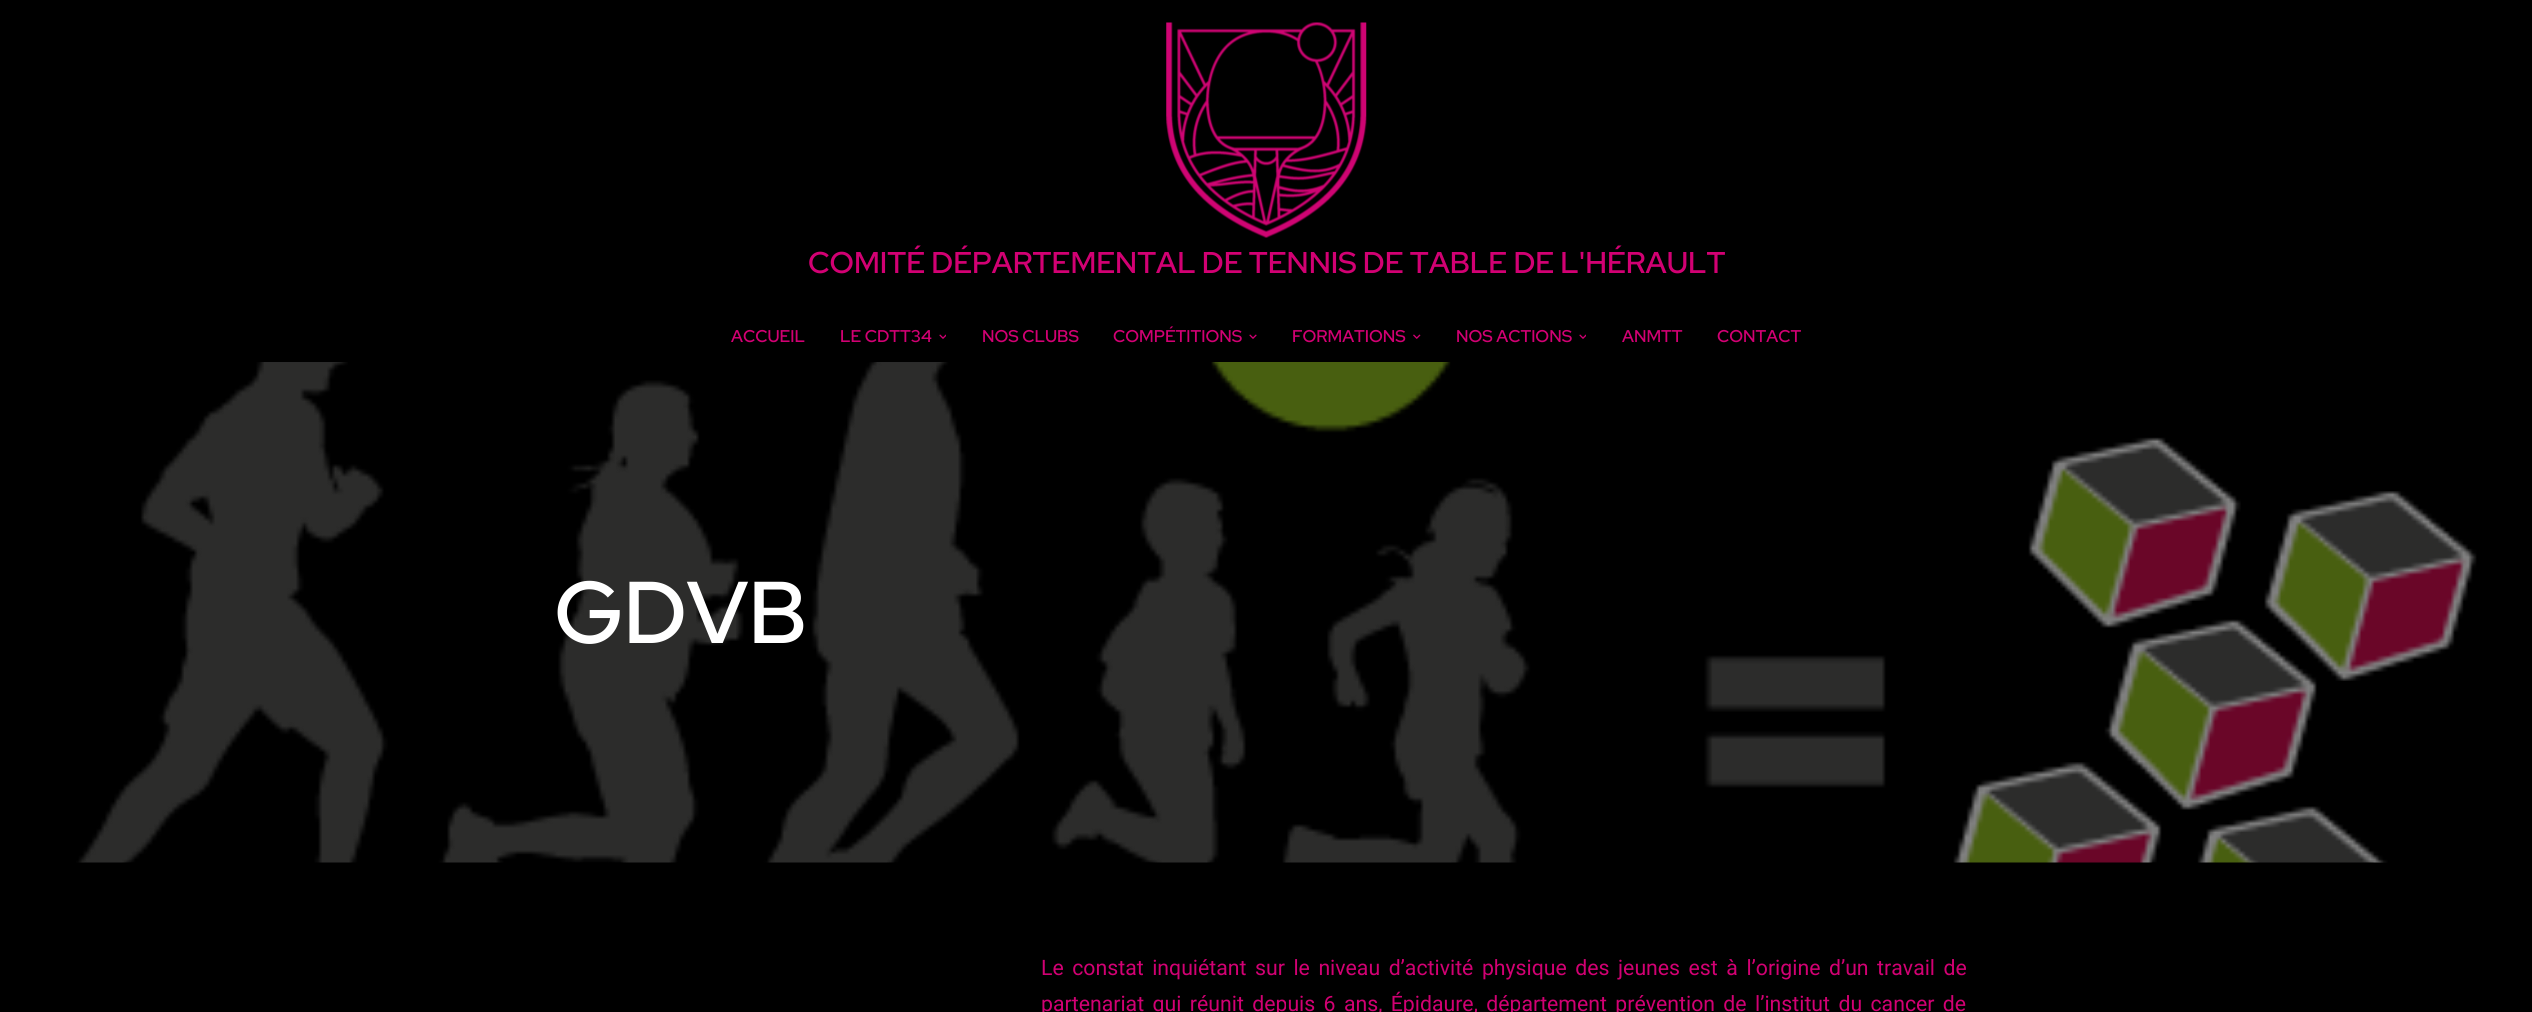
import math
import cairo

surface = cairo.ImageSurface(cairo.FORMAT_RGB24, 2532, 1012)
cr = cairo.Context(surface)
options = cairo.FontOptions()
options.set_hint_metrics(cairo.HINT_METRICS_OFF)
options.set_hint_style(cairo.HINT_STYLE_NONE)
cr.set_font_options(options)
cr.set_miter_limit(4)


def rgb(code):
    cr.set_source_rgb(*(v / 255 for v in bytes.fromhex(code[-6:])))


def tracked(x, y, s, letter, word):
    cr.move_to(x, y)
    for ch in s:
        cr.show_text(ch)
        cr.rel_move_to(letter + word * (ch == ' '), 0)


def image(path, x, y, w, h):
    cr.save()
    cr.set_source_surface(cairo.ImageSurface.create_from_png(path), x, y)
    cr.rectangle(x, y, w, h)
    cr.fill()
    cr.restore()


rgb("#000000")
cr.paint()
image("img/1.png", 1166, 22, 201, 216)
image("img/2.png", 939, 334, 7, 5)
image("img/3.png", 1249, 334, 8, 5)
image("img/4.png", 1413, 334, 8, 5)
image("img/2.png", 1579, 334, 7, 5)
image("img/5.png", 76, 362, 2401, 501)
cr.select_font_face("Red Hat Display SemiBold")
cr.set_font_size(30)
rgb("#d20073")
cr.move_to(808, 273)
cr.show_text("COMITÉ DÉPARTEMENTAL DE TENNIS DE TABLE DE L'HÉRAULT")
cr.set_font_size(17)
for x, y, s in [
    (731, 342, "ACCUEIL"),
    (840, 342, "LE CDTT34"),
    (982, 342, "NOS CLUBS"),
    (1113, 342, "COMPÉTITIONS"),
    (1292, 342, "FORMATIONS"),
    (1456, 342, "NOS ACTIONS"),
    (1622, 342, "ANMTT"),
    (1717, 342, "CONTACT"),
]:
    cr.move_to(x, y)
    cr.show_text(s)
cr.set_font_size(87.5)
rgb("#ffffff")
cr.move_to(554, 643)
cr.show_text("GDVB")
cr.select_font_face("Roboto")
cr.set_font_size(21.25)
rgb("#d20073")
tracked(1041, 975, "Le constat inquiétant sur le niveau d’activité physique des jeunes est à l’origine d’un travail de", 0, 3.25)
tracked(1041, 1011, "partenariat qui réunit depuis 6 ans, Épidaure, département prévention de l’institut du cancer de", 0, 3.1)
surface.write_to_png("page.png")
